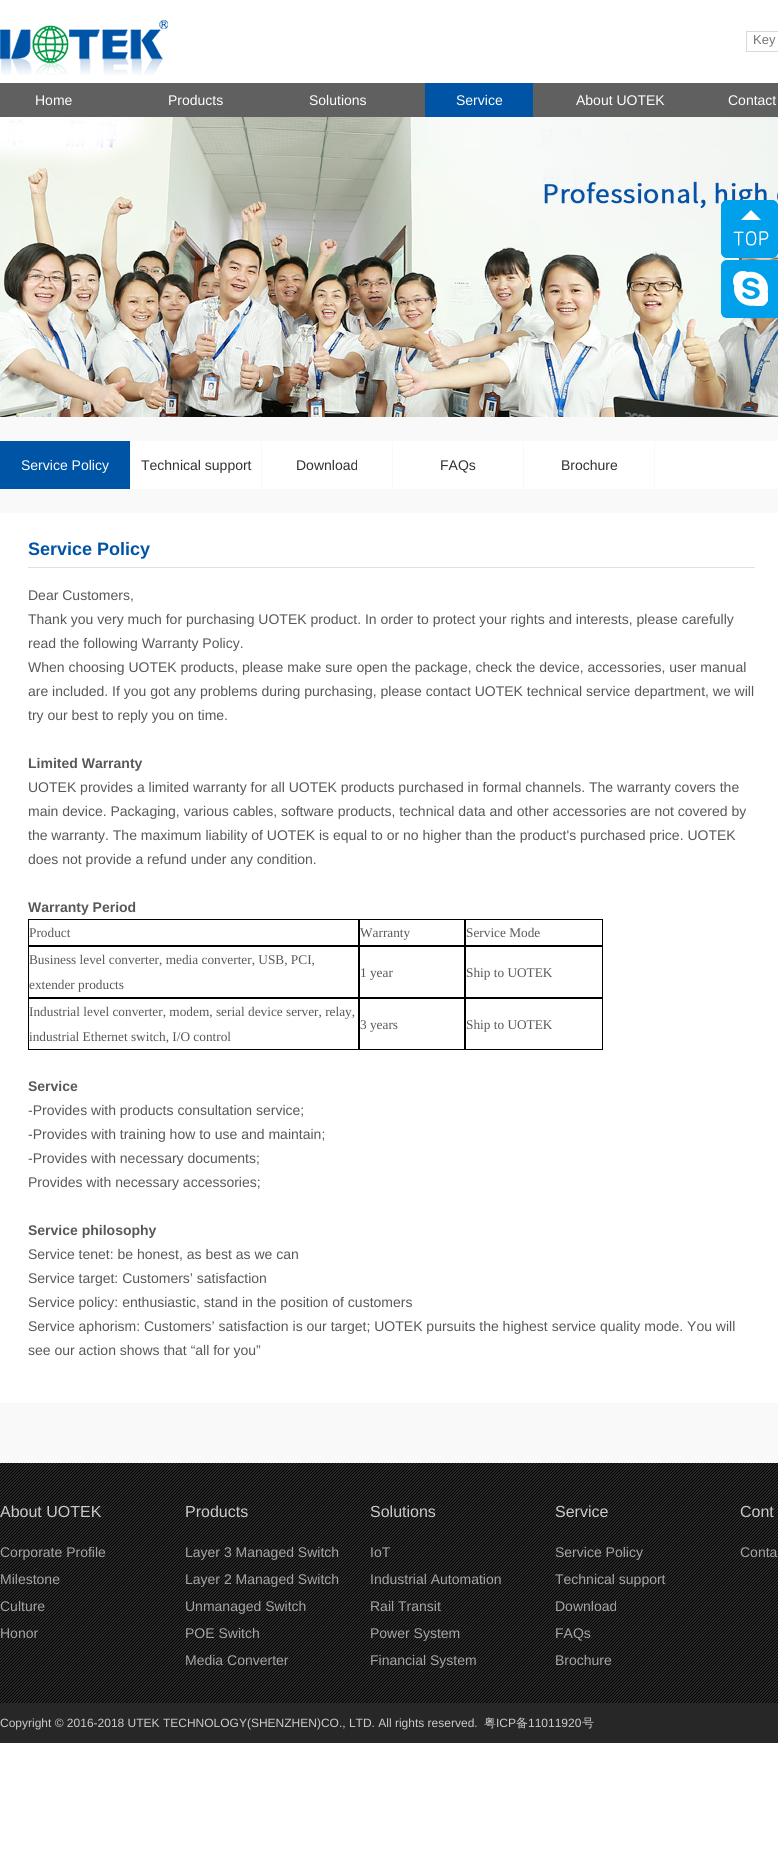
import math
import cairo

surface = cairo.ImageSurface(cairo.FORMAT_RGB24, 778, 1858)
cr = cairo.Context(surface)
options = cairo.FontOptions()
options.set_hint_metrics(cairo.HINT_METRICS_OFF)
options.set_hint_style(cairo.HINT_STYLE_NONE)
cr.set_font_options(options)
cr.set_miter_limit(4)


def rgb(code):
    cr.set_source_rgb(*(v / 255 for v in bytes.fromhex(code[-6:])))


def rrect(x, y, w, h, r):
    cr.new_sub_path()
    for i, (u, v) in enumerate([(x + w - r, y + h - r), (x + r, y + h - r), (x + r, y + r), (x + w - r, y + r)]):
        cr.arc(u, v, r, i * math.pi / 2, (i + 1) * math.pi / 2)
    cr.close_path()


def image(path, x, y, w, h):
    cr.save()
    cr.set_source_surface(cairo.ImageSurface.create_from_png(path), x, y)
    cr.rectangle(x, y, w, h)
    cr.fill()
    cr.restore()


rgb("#ffffff")
cr.paint()
image("img/1.png", 0, 20, 168, 55)
cr.rectangle(746.5, 31.5, 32, 20)
rgb("#d9d9d9")
cr.set_line_width(1)
cr.stroke()
rgb("#606060")
cr.rectangle(0, 83, 778, 34)
cr.fill()
rgb("#0054a5")
cr.rectangle(425, 83, 108, 34)
cr.fill()
image("img/2.png", 0, 117, 778, 300)
rgb("#00a0ea")
rrect(721, 200, 57, 58, 6)
cr.fill()
image("img/3.png", 721, 200, 57, 58)
rrect(721, 260, 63, 58, 6)
cr.fill()
image("img/4.png", 721, 260, 47, 58)
for x, y, w, h, color in [
    (0, 417, 778, 96, "#f9f9f9"),
    (131, 441, 647, 48, "#ffffff"),
    (0, 441, 130, 48, "#0054a5"),
    (261, 441, 1, 48, "#f9f9f9"),
    (392, 441, 1, 48, "#f9f9f9"),
    (523, 441, 1, 48, "#f9f9f9"),
    (654, 441, 1, 48, "#f9f9f9"),
    (0, 1403, 778, 60, "#f9f9f9"),
    (28, 567, 727, 1, "#e1e1e1"),
]:
    rgb(color)
    cr.rectangle(x, y, w, h)
    cr.fill()
cr.rectangle(28.5, 919.5, 330, 26)
rgb("#000000")
cr.stroke()
cr.rectangle(359.5, 919.5, 105, 26)
cr.stroke()
cr.rectangle(465.5, 919.5, 137, 26)
cr.stroke()
cr.rectangle(28.5, 946.5, 330, 51)
cr.stroke()
cr.rectangle(359.5, 946.5, 105, 51)
cr.stroke()
cr.rectangle(465.5, 946.5, 137, 51)
cr.stroke()
cr.rectangle(28.5, 998.5, 330, 51)
cr.stroke()
cr.rectangle(359.5, 998.5, 105, 51)
cr.stroke()
cr.rectangle(465.5, 998.5, 137, 51)
cr.stroke()
image("img/5.png", 0, 1463, 778, 240)
rgb("#272727")
cr.rectangle(0, 1703, 778, 40)
cr.fill()
cr.select_font_face("Liberation Sans")
cr.set_font_size(13)
rgb("#757575")
cr.move_to(753, 44)
cr.show_text("Key")
cr.set_font_size(14)
rgb("#ffffff")
for x, y, s in [
    (35, 105, "Home"),
    (168, 105, "Products"),
    (309, 105, "Solutions"),
    (456, 105, "Service"),
    (576, 105, "About UOTEK"),
    (728, 105, "Contact"),
    (21, 470, "Service Policy"),
]:
    cr.move_to(x, y)
    cr.show_text(s)
rgb("#313131")
for x, y, s in [
    (141, 470, "Technical support"),
    (296, 470, "Download"),
    (440, 470, "FAQs"),
    (561, 470, "Brochure"),
]:
    cr.move_to(x, y)
    cr.show_text(s)
cr.select_font_face("Liberation Sans", cairo.FONT_SLANT_NORMAL, cairo.FONT_WEIGHT_BOLD)
cr.set_font_size(18)
rgb("#0054a5")
cr.move_to(28, 555)
cr.show_text("Service Policy")
cr.select_font_face("Liberation Sans")
cr.set_font_size(14)
rgb("#585858")
for x, y, s in [
    (28, 600, "Dear Customers,"),
    (28, 624, "Thank you very much for purchasing UOTEK product. In order to protect your rights and interests, please carefully"),
    (28, 648, "read the following Warranty Policy."),
    (28, 672, "When choosing UOTEK products, please make sure open the package, check the device, accessories, user manual"),
    (28, 696, "are included. If you got any problems during purchasing, please contact UOTEK technical service department, we will"),
    (28, 720, "try our best to reply you on time."),
]:
    cr.move_to(x, y)
    cr.show_text(s)
cr.select_font_face("Liberation Sans", cairo.FONT_SLANT_NORMAL, cairo.FONT_WEIGHT_BOLD)
cr.move_to(28, 768)
cr.show_text("Limited Warranty")
cr.select_font_face("Liberation Sans")
for x, y, s in [
    (28, 792, "UOTEK provides a limited warranty for all UOTEK products purchased in formal channels. The warranty covers the"),
    (28, 816, "main device. Packaging, various cables, software products, technical data and other accessories are not covered by"),
    (28, 840, "the warranty. The maximum liability of UOTEK is equal to or no higher than the product's purchased price. UOTEK"),
    (28, 864, "does not provide a refund under any condition."),
]:
    cr.move_to(x, y)
    cr.show_text(s)
cr.select_font_face("Liberation Sans", cairo.FONT_SLANT_NORMAL, cairo.FONT_WEIGHT_BOLD)
cr.move_to(28, 912)
cr.show_text("Warranty Period")
cr.select_font_face("Liberation Serif")
cr.set_font_size(13.3)
for x, y, s in [
    (29, 937, "Product"),
    (360, 937, "Warranty"),
    (466, 937, "Service Mode"),
    (29, 964, "Business level converter, media converter, USB, PCI,"),
    (29, 989, "extender products"),
    (360, 977, "1 year"),
    (466, 977, "Ship to UOTEK"),
    (29, 1016, "Industrial level converter, modem, serial device server, relay,"),
    (29, 1041, "industrial Ethernet switch, I/O control"),
    (360, 1029, "3 years"),
    (466, 1029, "Ship to UOTEK"),
]:
    cr.move_to(x, y)
    cr.show_text(s)
cr.select_font_face("Liberation Sans", cairo.FONT_SLANT_NORMAL, cairo.FONT_WEIGHT_BOLD)
cr.set_font_size(14)
cr.move_to(28, 1091)
cr.show_text("Service")
cr.select_font_face("Liberation Sans")
for x, y, s in [
    (28, 1115, "-Provides with products consultation service;"),
    (28, 1139, "-Provides with training how to use and maintain;"),
    (28, 1163, "-Provides with necessary documents;"),
    (28, 1187, "Provides with necessary accessories;"),
]:
    cr.move_to(x, y)
    cr.show_text(s)
cr.select_font_face("Liberation Sans", cairo.FONT_SLANT_NORMAL, cairo.FONT_WEIGHT_BOLD)
cr.move_to(28, 1235)
cr.show_text("Service philosophy")
cr.select_font_face("Liberation Sans")
for x, y, s in [
    (28, 1259, "Service tenet: be honest, as best as we can"),
    (28, 1283, "Service target: Customers’ satisfaction"),
    (28, 1307, "Service policy: enthusiastic, stand in the position of customers"),
    (28, 1331, "Service aphorism: Customers’ satisfaction is our target; UOTEK pursuits the highest service quality mode. You will"),
    (28, 1355, "see our action shows that “all for you”"),
]:
    cr.move_to(x, y)
    cr.show_text(s)
cr.set_font_size(16)
rgb("#cccccc")
cr.move_to(0, 1517)
cr.show_text("About UOTEK")
cr.set_font_size(14)
rgb("#a6a6a6")
for x, y, s in [
    (0, 1557, "Corporate Profile"),
    (0, 1584, "Milestone"),
    (0, 1611, "Culture"),
    (0, 1638, "Honor"),
]:
    cr.move_to(x, y)
    cr.show_text(s)
cr.set_font_size(16)
rgb("#cccccc")
cr.move_to(185, 1517)
cr.show_text("Products")
cr.set_font_size(14)
rgb("#a6a6a6")
for x, y, s in [
    (185, 1557, "Layer 3 Managed Switch"),
    (185, 1584, "Layer 2 Managed Switch"),
    (185, 1611, "Unmanaged Switch"),
    (185, 1638, "POE Switch"),
    (185, 1665, "Media Converter"),
]:
    cr.move_to(x, y)
    cr.show_text(s)
cr.set_font_size(16)
rgb("#cccccc")
cr.move_to(370, 1517)
cr.show_text("Solutions")
cr.set_font_size(14)
rgb("#a6a6a6")
for x, y, s in [
    (370, 1557, "IoT"),
    (370, 1584, "Industrial Automation"),
    (370, 1611, "Rail Transit"),
    (370, 1638, "Power System"),
    (370, 1665, "Financial System"),
]:
    cr.move_to(x, y)
    cr.show_text(s)
cr.set_font_size(16)
rgb("#cccccc")
cr.move_to(555, 1517)
cr.show_text("Service")
cr.set_font_size(14)
rgb("#a6a6a6")
for x, y, s in [
    (555, 1557, "Service Policy"),
    (555, 1584, "Technical support"),
    (555, 1611, "Download"),
    (555, 1638, "FAQs"),
    (555, 1665, "Brochure"),
]:
    cr.move_to(x, y)
    cr.show_text(s)
cr.set_font_size(16)
rgb("#cccccc")
cr.move_to(740, 1517)
cr.show_text("Cont")
cr.set_font_size(14)
rgb("#a6a6a6")
cr.move_to(740, 1557)
cr.show_text("Conta")
cr.set_font_size(12)
rgb("#cccccc")
cr.move_to(0, 1727)
cr.show_text("Copyright © 2016-2018 UTEK TECHNOLOGY(SHENZHEN)CO., LTD. All rights reserved.")
cr.select_font_face("WenQuanYi Zen Hei Medium")
cr.move_to(484, 1727)
cr.show_text("粤")
cr.select_font_face("Liberation Sans")
cr.move_to(496, 1727)
cr.show_text("ICP")
cr.select_font_face("WenQuanYi Zen Hei Medium")
cr.move_to(516, 1727)
cr.show_text("备")
cr.select_font_face("Liberation Sans")
cr.move_to(528, 1727)
cr.show_text("11011920")
cr.select_font_face("WenQuanYi Zen Hei Medium")
cr.move_to(582, 1727)
cr.show_text("号")
surface.write_to_png("page.png")
